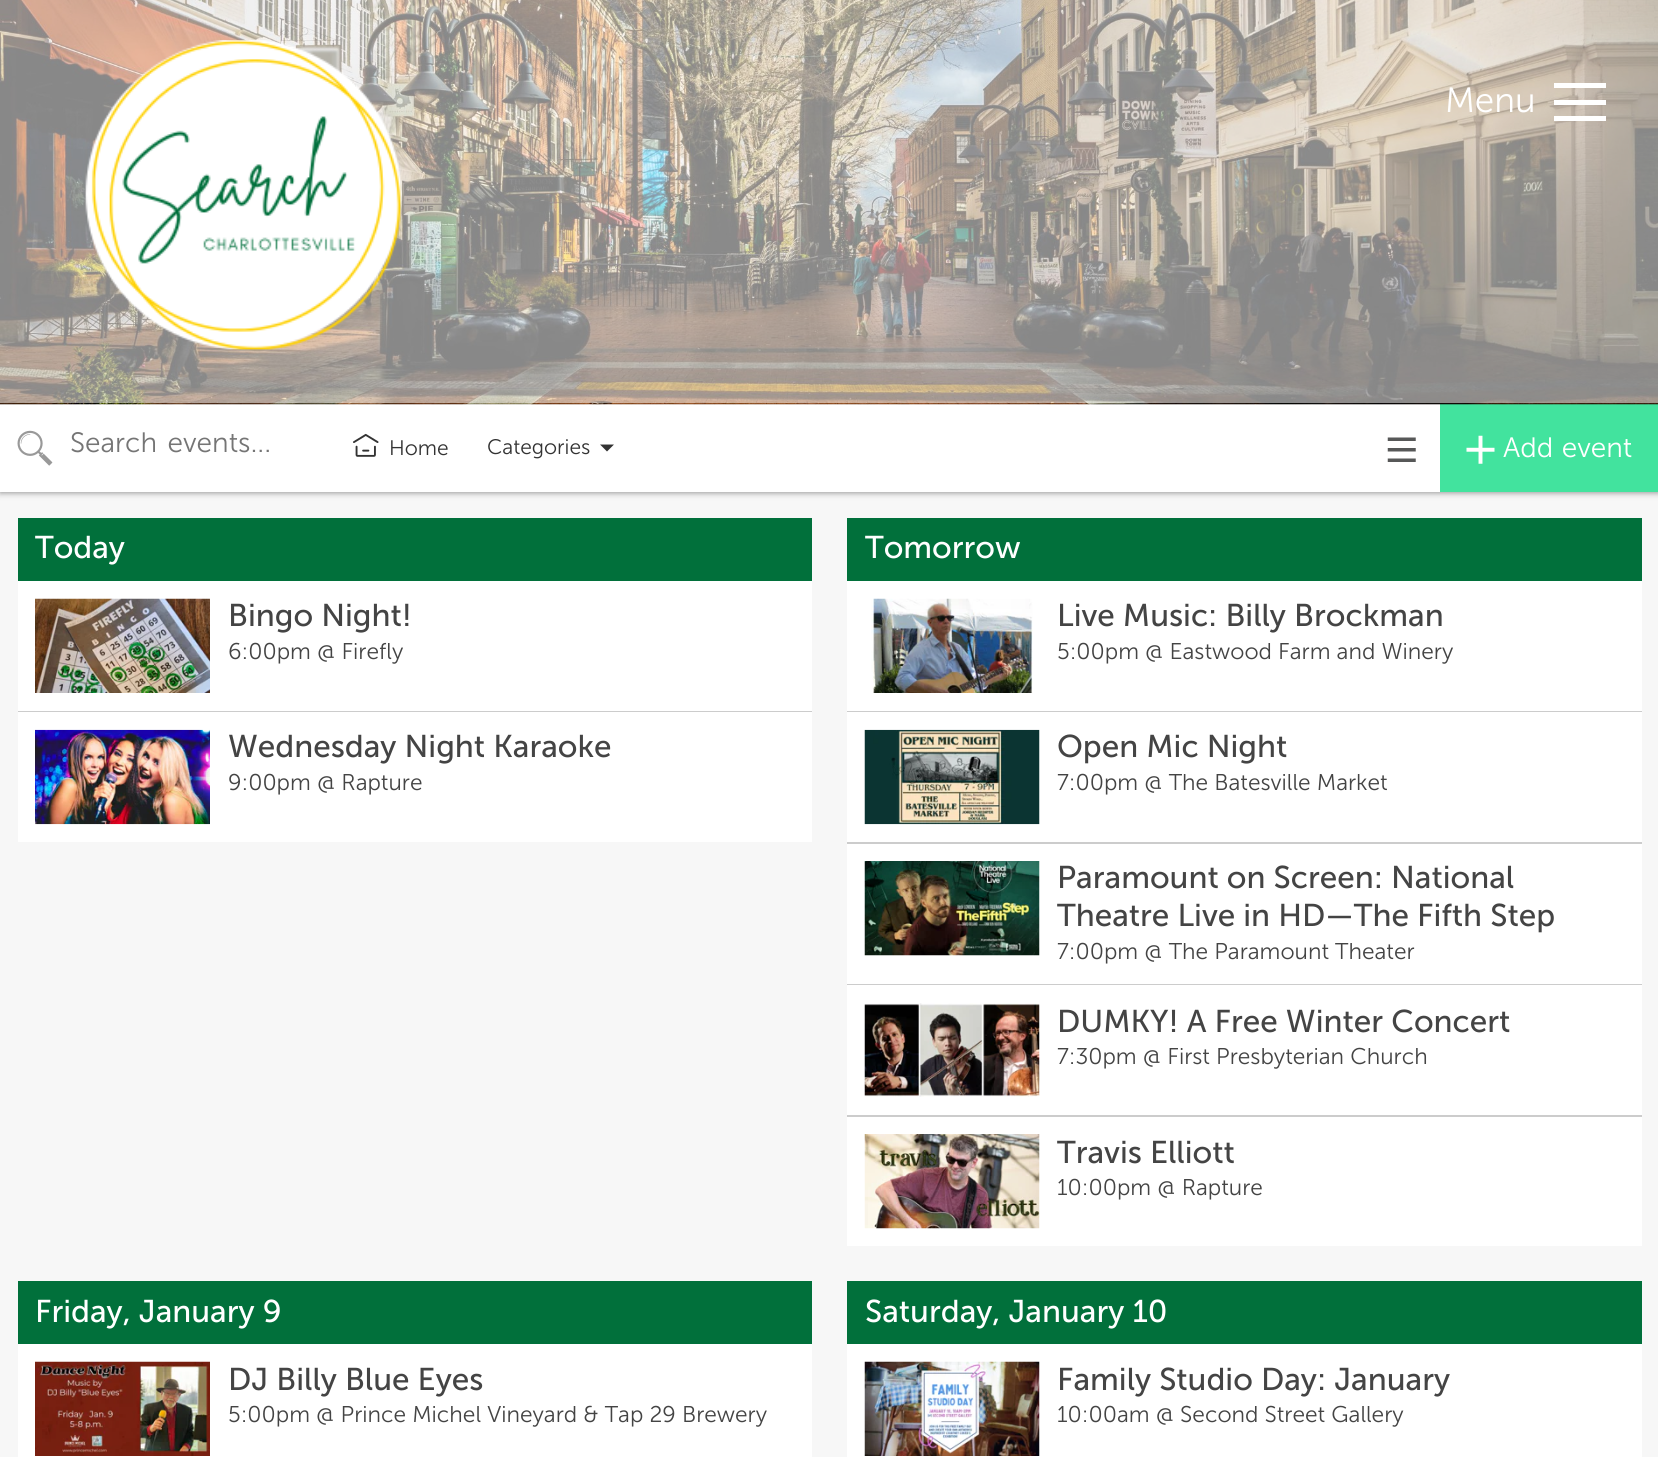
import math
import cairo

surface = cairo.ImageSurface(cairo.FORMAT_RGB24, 1658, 1457)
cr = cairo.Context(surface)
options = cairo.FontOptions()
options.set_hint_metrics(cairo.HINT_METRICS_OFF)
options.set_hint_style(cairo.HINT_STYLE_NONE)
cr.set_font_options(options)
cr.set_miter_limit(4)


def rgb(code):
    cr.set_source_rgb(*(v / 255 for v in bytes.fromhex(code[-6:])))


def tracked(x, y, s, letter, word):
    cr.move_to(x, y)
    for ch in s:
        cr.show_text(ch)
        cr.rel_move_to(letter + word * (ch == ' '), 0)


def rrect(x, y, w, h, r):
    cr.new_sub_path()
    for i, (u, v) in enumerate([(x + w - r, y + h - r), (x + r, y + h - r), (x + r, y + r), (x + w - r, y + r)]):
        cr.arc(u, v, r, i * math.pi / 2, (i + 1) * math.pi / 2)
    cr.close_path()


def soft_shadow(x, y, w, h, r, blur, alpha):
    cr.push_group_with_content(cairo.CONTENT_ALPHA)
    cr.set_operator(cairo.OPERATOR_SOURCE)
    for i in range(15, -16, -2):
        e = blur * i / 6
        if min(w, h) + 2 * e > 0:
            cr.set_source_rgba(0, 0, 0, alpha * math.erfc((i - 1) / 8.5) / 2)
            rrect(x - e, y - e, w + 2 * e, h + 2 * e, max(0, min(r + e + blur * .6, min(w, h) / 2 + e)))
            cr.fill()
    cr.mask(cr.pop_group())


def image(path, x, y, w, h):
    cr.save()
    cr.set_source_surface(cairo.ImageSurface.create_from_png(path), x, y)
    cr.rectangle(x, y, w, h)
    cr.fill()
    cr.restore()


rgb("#f7f7f7")
cr.paint()
rgb("#000000")
soft_shadow(0, 404, 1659, 88, 0, 3.5, 0.5)
rgb("#ffffff")
cr.rectangle(0, 404, 1440, 88)
cr.fill()
rgb("#42e39e")
cr.rectangle(1440, 404, 218, 88)
cr.fill()
image("img/1.png", 0, 0, 1658, 405)
cr.set_source_rgba(0.067, 0.067, 0.067, 0.07)
cr.rectangle(0, 403, 1658, 2)
cr.fill()
image("img/2.png", 85, 40, 317, 311)
rgb("#ffffff")
cr.new_path()
cr.move_to(1554, 83)
cr.line_to(1606, 83)
cr.line_to(1606, 88)
cr.line_to(1554, 88)
cr.close_path()
cr.move_to(1554, 100)
cr.line_to(1606, 100)
cr.line_to(1606, 105)
cr.line_to(1554, 105)
cr.close_path()
cr.move_to(1554, 116)
cr.line_to(1606, 116)
cr.line_to(1606, 121)
cr.line_to(1554, 121)
cr.close_path()
cr.fill()
image("img/3.png", 17, 430, 36, 36)
image("img/4.png", 353, 433, 26, 24)
rgb("#333333")
cr.new_path()
cr.move_to(600, 444.5)
cr.line_to(614, 444.5)
cr.line_to(607, 451.5)
cr.close_path()
cr.fill()
image("img/5.png", 1387, 437, 29, 25)
image("img/6.png", 1466, 435, 29, 29)
for x, y, w, h, color in [
    (18, 518, 794, 63, "#01703b"),
    (18, 581, 794, 130, "#ffffff"),
    (18, 711, 794, 1, "#cccccc"),
]:
    rgb(color)
    cr.rectangle(x, y, w, h)
    cr.fill()
image("img/7.png", 35, 598, 175, 95)
rgb("#ffffff")
cr.rectangle(18, 712, 794, 130)
cr.fill()
image("img/8.png", 35, 729, 175, 96)
for x, y, w, h, color in [
    (847, 518, 795, 63, "#01703b"),
    (847, 581, 795, 130, "#ffffff"),
    (847, 711, 795, 1, "#cccccc"),
]:
    rgb(color)
    cr.rectangle(x, y, w, h)
    cr.fill()
image("img/9.png", 871, 598, 162, 95)
rgb("#ffffff")
cr.rectangle(847, 712, 795, 130)
cr.fill()
rgb("#cccccc")
cr.rectangle(847, 842, 795, 2)
cr.fill()
image("img/10.png", 864, 729, 176, 96)
rgb("#ffffff")
cr.rectangle(847, 844, 795, 140)
cr.fill()
rgb("#cccccc")
cr.rectangle(847, 984, 795, 1)
cr.fill()
image("img/11.png", 864, 861, 176, 95)
rgb("#ffffff")
cr.rectangle(847, 985, 795, 130)
cr.fill()
rgb("#cccccc")
cr.rectangle(847, 1115, 795, 2)
cr.fill()
image("img/12.png", 864, 1003, 176, 94)
rgb("#ffffff")
cr.rectangle(847, 1117, 795, 129)
cr.fill()
image("img/13.png", 864, 1134, 176, 95)
rgb("#01703b")
cr.rectangle(18, 1281, 794, 63)
cr.fill()
rgb("#ffffff")
cr.rectangle(18, 1344, 794, 113)
cr.fill()
image("img/14.png", 35, 1361, 175, 95)
rgb("#01703b")
cr.rectangle(847, 1281, 795, 63)
cr.fill()
rgb("#ffffff")
cr.rectangle(847, 1344, 795, 113)
cr.fill()
image("img/15.png", 864, 1361, 176, 95)
cr.select_font_face("Museo Sans Light")
cr.set_font_size(35)
cr.move_to(1445, 112)
cr.show_text("Menu")
cr.set_font_size(28)
rgb("#757575")
tracked(70, 452, "Search events...", 0, 3)
cr.set_font_size(21)
rgb("#333333")
cr.move_to(389, 455)
cr.show_text("Home")
cr.move_to(487, 454)
cr.show_text("Categories")
cr.set_font_size(28)
rgb("#ffffff")
tracked(1503, 457, "Add event", 0, 1)
cr.select_font_face("Museo Sans")
cr.set_font_size(31.5)
cr.move_to(35, 558)
cr.show_text("Today")
rgb("#444444")
cr.move_to(228, 626)
cr.show_text("Bingo Night!")
cr.select_font_face("Museo Sans Light")
cr.set_font_size(22.75)
cr.move_to(228, 659)
cr.show_text("6:00pm @ Firefly")
cr.select_font_face("Museo Sans")
cr.set_font_size(31.5)
cr.move_to(228, 757)
cr.show_text("Wednesday Night Karaoke")
cr.select_font_face("Museo Sans Light")
cr.set_font_size(22.75)
cr.move_to(228, 790)
cr.show_text("9:00pm @ Rapture")
cr.select_font_face("Museo Sans")
cr.set_font_size(31.5)
rgb("#ffffff")
cr.move_to(865, 558)
cr.show_text("Tomorrow")
rgb("#444444")
cr.move_to(1057, 626)
cr.show_text("Live Music: Billy Brockman")
cr.select_font_face("Museo Sans Light")
cr.set_font_size(22.75)
cr.move_to(1057, 659)
cr.show_text("5:00pm @ Eastwood Farm and Winery")
cr.select_font_face("Museo Sans")
cr.set_font_size(31.5)
cr.move_to(1057, 757)
cr.show_text("Open Mic Night")
cr.select_font_face("Museo Sans Light")
cr.set_font_size(22.75)
cr.move_to(1057, 790)
cr.show_text("7:00pm @ The Batesville Market")
cr.select_font_face("Museo Sans")
cr.set_font_size(31.5)
cr.move_to(1057, 888)
cr.show_text("Paramount on Screen: National")
cr.move_to(1057, 926)
cr.show_text("Theatre Live in HD—The Fifth Step")
cr.select_font_face("Museo Sans Light")
cr.set_font_size(22.75)
cr.move_to(1057, 959)
cr.show_text("7:00pm @ The Paramount Theater")
cr.select_font_face("Museo Sans")
cr.set_font_size(31.5)
cr.move_to(1057, 1032)
cr.show_text("DUMKY! A Free Winter Concert")
cr.select_font_face("Museo Sans Light")
cr.set_font_size(22.75)
cr.move_to(1057, 1064)
cr.show_text("7:30pm @ First Presbyterian Church")
cr.select_font_face("Museo Sans")
cr.set_font_size(31.5)
cr.move_to(1057, 1163)
cr.show_text("Travis Elliott")
cr.select_font_face("Museo Sans Light")
cr.set_font_size(22.75)
cr.move_to(1057, 1195)
cr.show_text("10:00pm @ Rapture")
cr.select_font_face("Museo Sans")
cr.set_font_size(31.5)
rgb("#ffffff")
cr.move_to(35, 1322)
cr.show_text("Friday, January 9")
rgb("#444444")
cr.move_to(228, 1390)
cr.show_text("DJ Billy Blue Eyes")
cr.select_font_face("Museo Sans Light")
cr.set_font_size(22.75)
cr.move_to(228, 1422)
cr.show_text("5:00pm @ Prince Michel Vineyard & Tap 29 Brewery")
cr.select_font_face("Museo Sans")
cr.set_font_size(31.5)
rgb("#ffffff")
cr.move_to(865, 1322)
cr.show_text("Saturday, January 10")
rgb("#444444")
cr.move_to(1057, 1390)
cr.show_text("Family Studio Day: January")
cr.select_font_face("Museo Sans Light")
cr.set_font_size(22.75)
cr.move_to(1057, 1422)
cr.show_text("10:00am @ Second Street Gallery")
surface.write_to_png("page.png")
